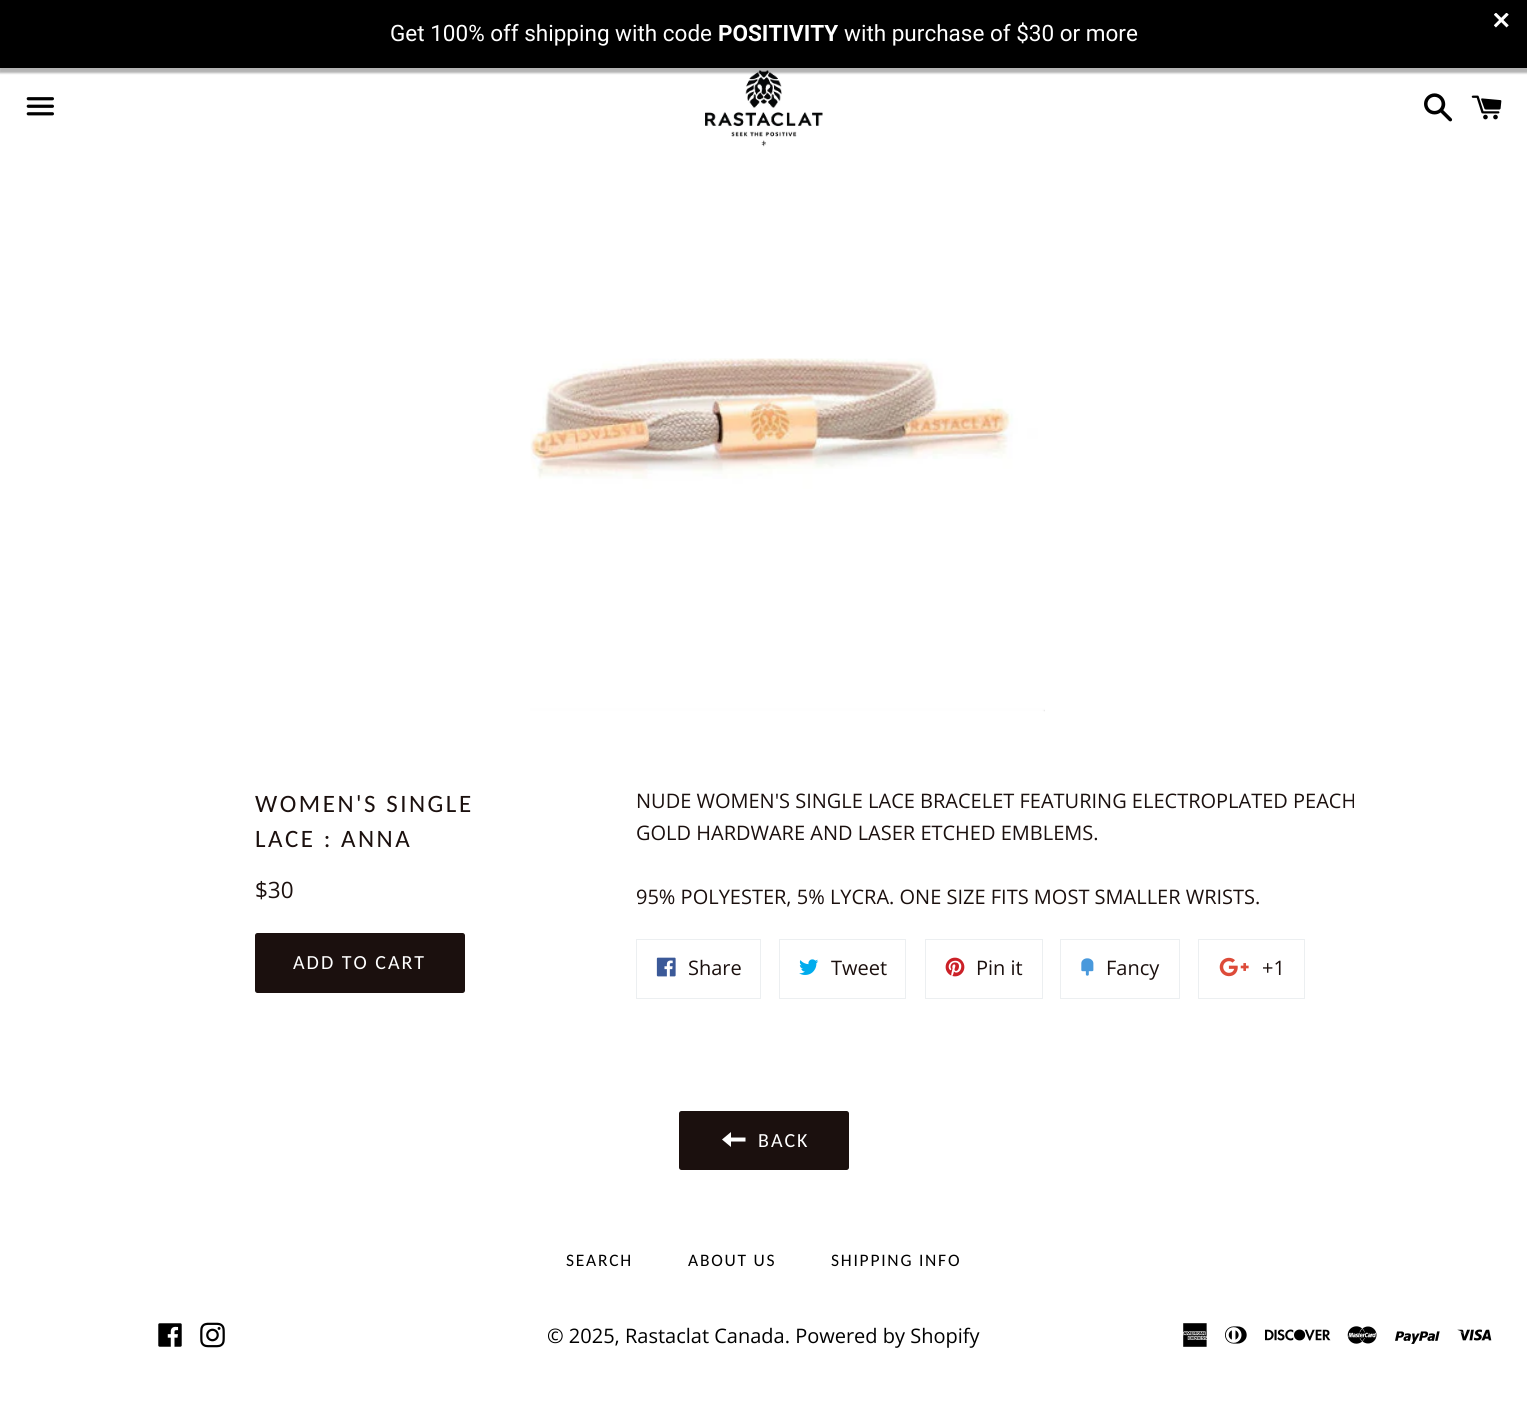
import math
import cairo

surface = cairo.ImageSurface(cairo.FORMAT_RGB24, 1527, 1403)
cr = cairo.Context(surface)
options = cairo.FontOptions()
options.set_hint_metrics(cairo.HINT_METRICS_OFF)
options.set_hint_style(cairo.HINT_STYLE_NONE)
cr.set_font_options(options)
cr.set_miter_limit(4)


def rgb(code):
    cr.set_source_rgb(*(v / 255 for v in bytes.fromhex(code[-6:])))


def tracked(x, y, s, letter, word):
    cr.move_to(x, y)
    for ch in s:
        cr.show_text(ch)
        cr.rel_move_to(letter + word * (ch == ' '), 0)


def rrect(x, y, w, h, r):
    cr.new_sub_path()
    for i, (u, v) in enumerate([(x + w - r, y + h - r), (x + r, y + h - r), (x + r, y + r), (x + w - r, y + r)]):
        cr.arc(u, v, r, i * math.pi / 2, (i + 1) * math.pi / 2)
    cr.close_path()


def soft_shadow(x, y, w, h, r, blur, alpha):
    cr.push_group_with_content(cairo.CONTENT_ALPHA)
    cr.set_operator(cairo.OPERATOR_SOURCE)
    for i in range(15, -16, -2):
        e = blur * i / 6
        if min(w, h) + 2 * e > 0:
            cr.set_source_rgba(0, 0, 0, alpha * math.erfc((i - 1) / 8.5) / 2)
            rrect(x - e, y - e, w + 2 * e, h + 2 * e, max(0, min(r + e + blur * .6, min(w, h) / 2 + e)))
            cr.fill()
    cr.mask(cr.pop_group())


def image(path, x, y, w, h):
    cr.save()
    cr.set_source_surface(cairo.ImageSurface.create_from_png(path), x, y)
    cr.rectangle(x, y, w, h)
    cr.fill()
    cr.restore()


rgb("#ffffff")
cr.paint()
image("img/3.png", 705, 70, 118, 77)
rgb("#000000")
soft_shadow(-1, 3, 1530, 70, 0, 1, 0.3)
rgb("#000000")
cr.rectangle(0, 0, 1527, 68)
cr.fill()
image("img/1.png", 1494, 13, 15, 15)
image("img/2.png", 26, 97, 28, 19)
image("img/4.png", 1424, 93, 29, 29)
image("img/5.png", 1471, 95, 31, 25)
image("img/6.png", 530, 358, 515, 354)
rgb("#1b100e")
rrect(255, 933, 210, 60, 2.5)
cr.fill()
cr.rectangle(636.5, 939.5, 124, 59)
rgb("#eceff1")
cr.set_line_width(1)
cr.stroke()
image("img/7.png", 656, 957, 20, 20)
cr.rectangle(779.5, 939.5, 126, 59)
cr.stroke()
image("img/8.png", 799, 959, 20, 16)
cr.rectangle(925.5, 939.5, 117, 59)
cr.stroke()
image("img/9.png", 945, 957, 20, 20)
cr.rectangle(1060.5, 939.5, 119, 59)
cr.stroke()
image("img/10.png", 1081, 958, 13, 18)
cr.rectangle(1198.5, 939.5, 106, 59)
cr.stroke()
image("img/11.png", 1219, 957, 30, 20)
rgb("#1b100e")
rrect(679, 1111, 170, 59, 2.5)
cr.fill()
rgb("#ffffff")
cr.new_path()
cr.move_to(731, 1137.5)
cr.line_to(731, 1132)
cr.line_to(722, 1139.5)
cr.line_to(731, 1147)
cr.line_to(731, 1141.5)
cr.line_to(745.5, 1141.5)
cr.line_to(745.5, 1137.5)
cr.close_path()
cr.fill()
image("img/12.png", 158, 1323, 24, 24)
image("img/13.png", 200, 1322, 25, 26)
image("img/14.png", 1183, 1323, 24, 24)
image("img/15.png", 1225, 1326, 22, 18)
image("img/16.png", 1265, 1329, 66, 12)
image("img/17.png", 1347, 1326, 30, 18)
image("img/18.png", 1395, 1331, 45, 13)
image("img/19.png", 1457, 1329, 35, 12)
cr.select_font_face("Roboto")
cr.set_font_size(22.5)
cr.move_to(390, 41)
cr.show_text("Get 100% off shipping with code")
cr.select_font_face("Roboto", cairo.FONT_SLANT_NORMAL, cairo.FONT_WEIGHT_BOLD)
cr.move_to(718, 41)
cr.show_text("POSITIVITY")
cr.select_font_face("Roboto")
cr.move_to(844, 41)
cr.show_text("with purchase of $30 or more")
cr.select_font_face("Carlito")
cr.set_font_size(25)
rgb("#1b100e")
tracked(255, 812, "WOMEN'S SINGLE", 2.5, 0)
tracked(255, 847, "LACE : ANNA", 2.5, 0)
cr.select_font_face("Open Sans")
cr.set_font_size(22.5)
cr.move_to(255, 898)
cr.show_text("$30")
cr.select_font_face("Carlito")
cr.set_font_size(20)
rgb("#ffffff")
tracked(293, 969, "ADD TO CART", 2, 0)
cr.select_font_face("Open Sans")
rgb("#1b100e")
for x, y, s in [
    (636, 808, "NUDE WOMEN'S SINGLE LACE BRACELET FEATURING ELECTROPLATED PEACH"),
    (636, 840, "GOLD HARDWARE AND LASER ETCHED EMBLEMS."),
    (636, 904, "95% POLYESTER, 5% LYCRA. ONE SIZE FITS MOST SMALLER WRISTS."),
    (688, 975, "Share"),
    (831, 975, "Tweet"),
    (976, 975, "Pin it"),
    (1106, 975, "Fancy"),
    (1262, 975, "+1"),
]:
    cr.move_to(x, y)
    cr.show_text(s)
cr.select_font_face("Carlito")
rgb("#ffffff")
tracked(758, 1147, "BACK", 2, 0)
cr.set_font_size(17.5)
rgb("#000000")
for x, y, s in [
    (566, 1266, "SEARCH"),
    (688, 1266, "ABOUT US"),
    (831, 1266, "SHIPPING INFO"),
]:
    tracked(x, y, s, 1.75, 0)
cr.select_font_face("Open Sans")
cr.set_font_size(20)
cr.move_to(547, 1343)
cr.show_text("© 2025, Rastaclat Canada. Powered by Shopify")
surface.write_to_png("page.png")
